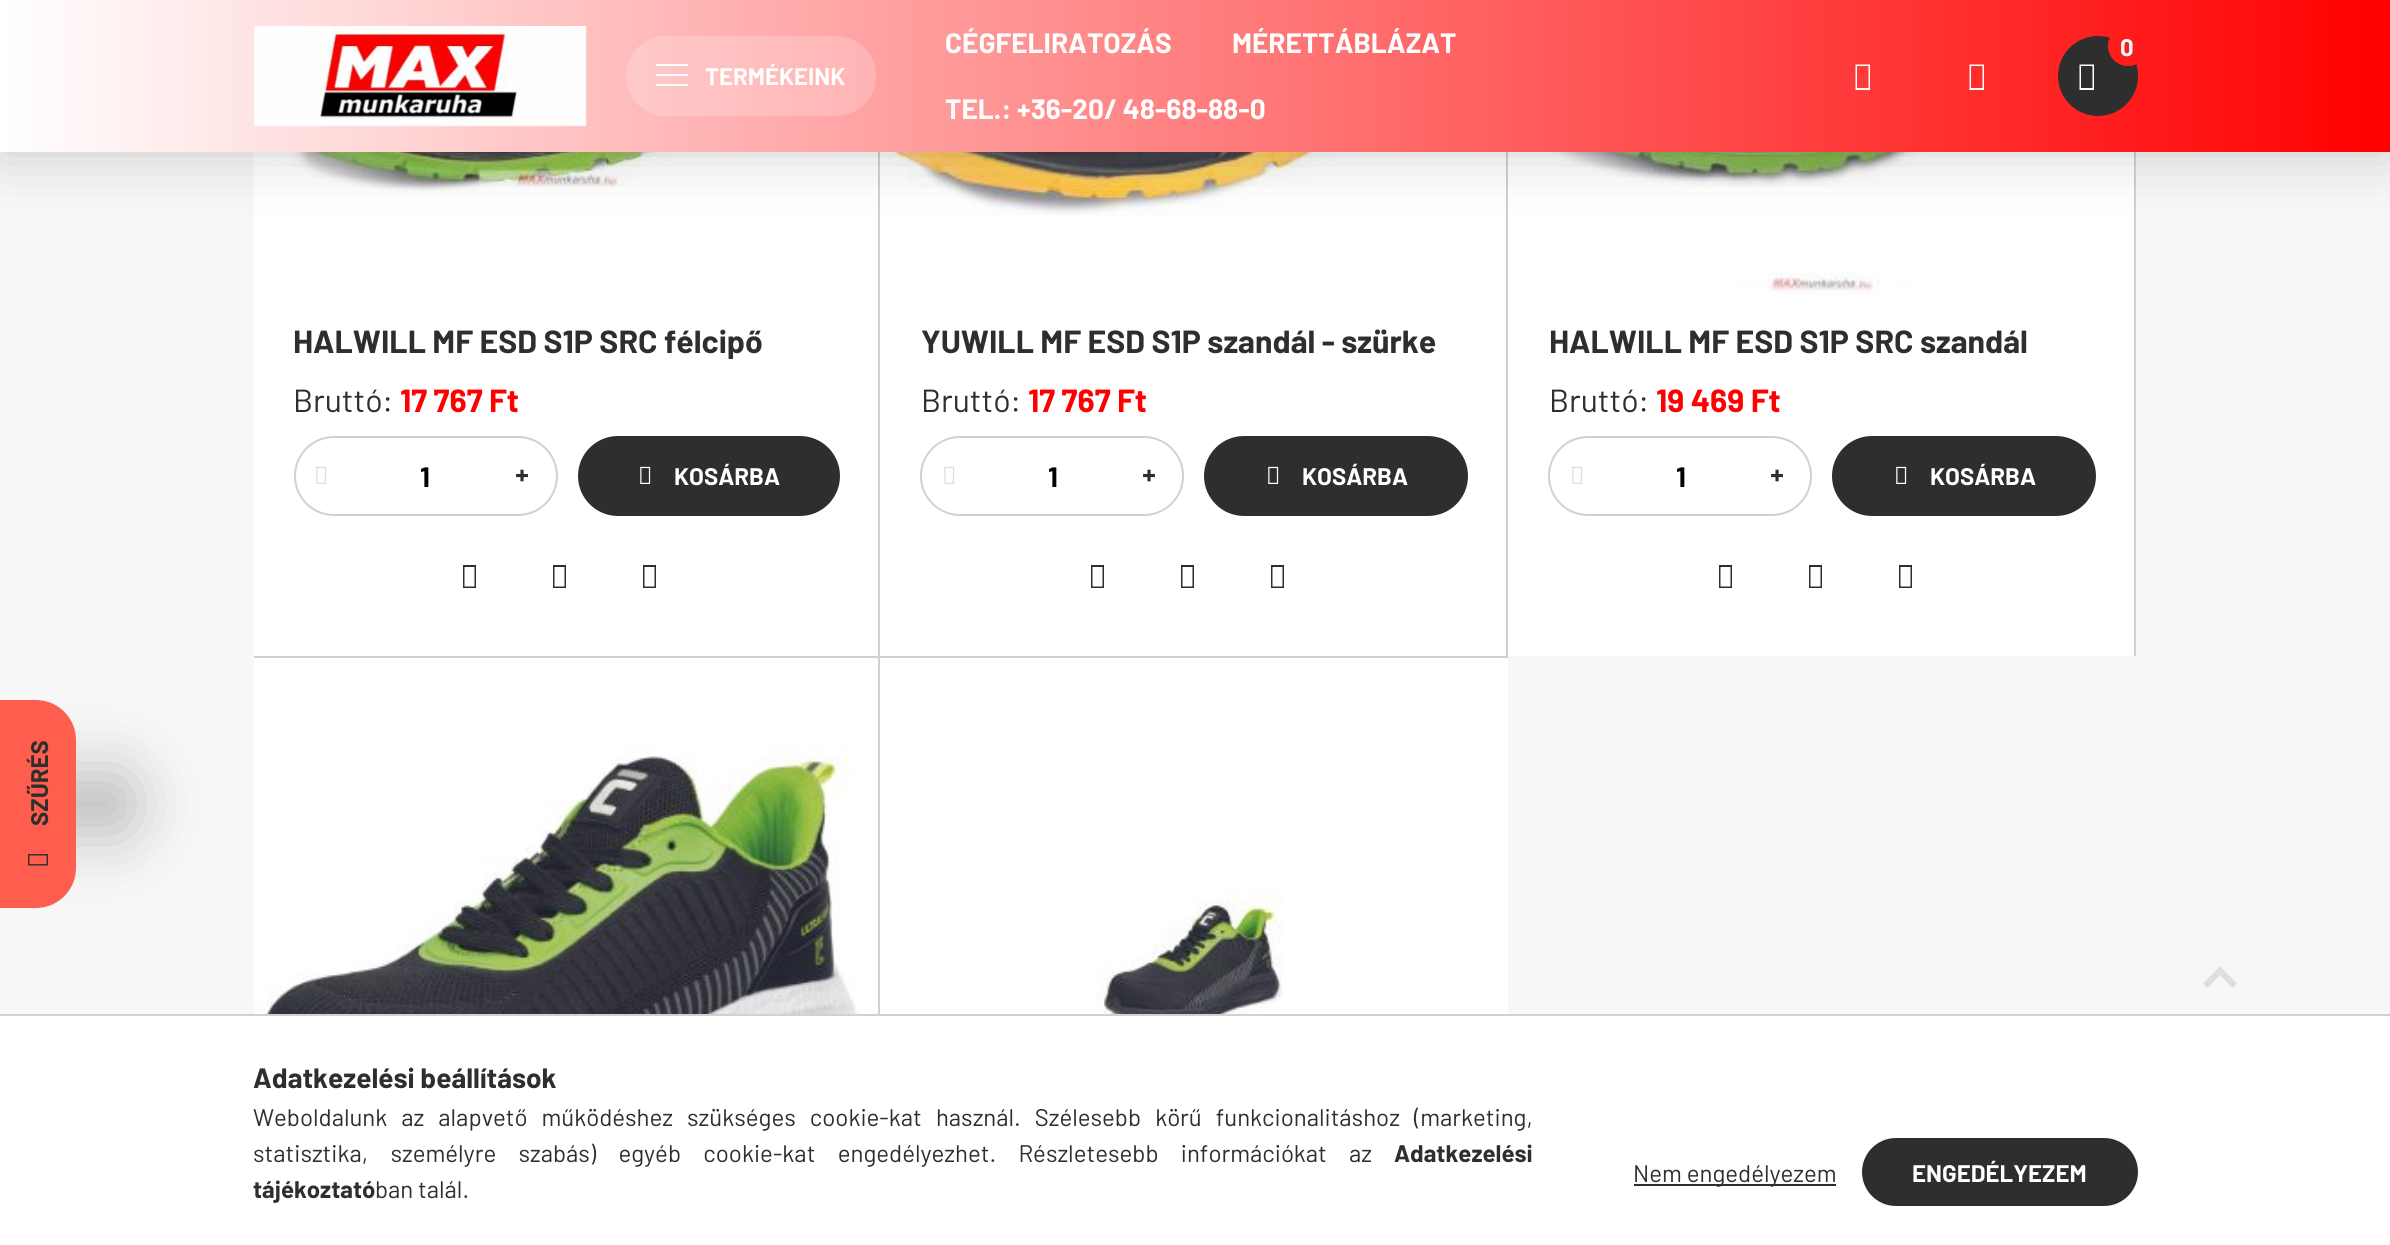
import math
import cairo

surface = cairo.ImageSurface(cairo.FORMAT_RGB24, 2390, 1245)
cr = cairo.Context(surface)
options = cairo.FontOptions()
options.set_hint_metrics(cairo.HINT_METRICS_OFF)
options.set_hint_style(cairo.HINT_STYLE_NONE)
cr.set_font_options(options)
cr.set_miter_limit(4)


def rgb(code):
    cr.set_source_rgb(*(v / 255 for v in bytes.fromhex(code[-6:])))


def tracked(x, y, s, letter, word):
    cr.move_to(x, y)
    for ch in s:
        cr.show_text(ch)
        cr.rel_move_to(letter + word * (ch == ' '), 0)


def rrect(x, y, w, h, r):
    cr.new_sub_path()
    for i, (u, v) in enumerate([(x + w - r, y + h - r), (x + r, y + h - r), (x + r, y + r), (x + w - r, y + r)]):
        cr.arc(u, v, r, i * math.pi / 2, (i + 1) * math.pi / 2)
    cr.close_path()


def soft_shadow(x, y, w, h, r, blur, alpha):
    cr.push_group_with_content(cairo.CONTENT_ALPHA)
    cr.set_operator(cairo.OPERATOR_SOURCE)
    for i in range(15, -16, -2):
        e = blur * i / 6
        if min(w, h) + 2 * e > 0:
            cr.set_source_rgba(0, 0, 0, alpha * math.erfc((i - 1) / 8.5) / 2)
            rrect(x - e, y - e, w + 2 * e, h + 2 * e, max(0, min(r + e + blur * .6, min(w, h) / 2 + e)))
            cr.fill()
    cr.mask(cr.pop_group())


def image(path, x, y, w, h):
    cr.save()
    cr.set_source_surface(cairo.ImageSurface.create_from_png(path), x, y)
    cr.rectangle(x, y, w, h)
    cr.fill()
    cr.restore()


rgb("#f7f7f7")
cr.paint()
rgb("#ffffff")
cr.rectangle(254, 152, 624, 504)
cr.fill()
image("img/2.png", 254, 152, 619, 40)
rgb("#d1d1d1")
cr.rectangle(878, 152, 2, 504)
cr.fill()
rgb("#ffffff")
cr.rectangle(880, 217, 626, 439)
cr.fill()
image("img/5.png", 880, 152, 626, 65)
rgb("#d1d1d1")
cr.rectangle(1506, 152, 2, 504)
cr.fill()
image("img/6.png", 1508, 152, 626, 143)
cr.rectangle(2134, 152, 2, 504)
cr.fill()
rgb("#000000")
soft_shadow(0, 0, 2390, 152, 0, 30, 0.2)
gradient = cairo.LinearGradient(0, 623, 2390, 623)
gradient.add_color_stop_rgba(0, 1, 1, 1, 1)
gradient.add_color_stop_rgba(1, 1, 0, 0, 1)
cr.set_source(gradient)
cr.rectangle(0, 0, 2390, 152)
cr.fill()
image("img/1.png", 254, 26, 333, 101)
cr.set_source_rgba(1, 1, 1, 0.2)
rrect(626, 36, 250, 80, 40)
cr.fill()
for x, y, w, h, color in [
    (656, 64, 32, 2, "#ffffff"),
    (656, 74, 32, 2, "#ffffff"),
    (656, 84, 32, 2, "#ffffff"),
]:
    rgb(color)
    cr.rectangle(x, y, w, h)
    cr.fill()
rgb("#2e2e2e")
cr.arc(2098, 76, 40, 0, 2 * math.pi)
cr.fill()
gradient = cairo.LinearGradient(0, 623, 2390, 623)
gradient.add_color_stop_rgba(0, 1, 1, 1, 1)
gradient.add_color_stop_rgba(1, 1, 0, 0, 1)
cr.set_source(gradient)
cr.arc(2128, 46, 20, 0, 2 * math.pi)
cr.fill()
rgb("#ffffff")
cr.new_path()
cr.move_to(2079.5, 90)
cr.line_to(2079.5, 64.5)
cr.line_to(2094, 64.5)
cr.line_to(2094, 90)
cr.close_path()
cr.move_to(2081, 88)
cr.line_to(2092.5, 88)
cr.line_to(2092.5, 66)
cr.line_to(2081, 66)
cr.close_path()
cr.fill()
cr.new_path()
cr.move_to(1855.5, 90)
cr.line_to(1855.5, 64.5)
cr.line_to(1870, 64.5)
cr.line_to(1870, 90)
cr.close_path()
cr.move_to(1857, 88)
cr.line_to(1868.5, 88)
cr.line_to(1868.5, 66)
cr.line_to(1857, 66)
cr.close_path()
cr.fill()
cr.new_path()
cr.move_to(1969.5, 90)
cr.line_to(1969.5, 64.5)
cr.line_to(1984, 64.5)
cr.line_to(1984, 90)
cr.close_path()
cr.move_to(1971, 88)
cr.line_to(1982.5, 88)
cr.line_to(1982.5, 66)
cr.line_to(1971, 66)
cr.close_path()
cr.fill()
rrect(295, 437, 262, 78, 39)
rgb("#d1d1d1")
cr.stroke()
image("img/3.png", 316, 466, 11, 18)
gradient = cairo.LinearGradient(578, 476, 1364, 476)
gradient.add_color_stop_rgba(0.33, 0.18, 0.18, 0.18, 1)
gradient.add_color_stop_rgba(0.67, 1, 0.365, 0.306, 1)
cr.set_source(gradient)
rrect(578, 436, 262, 80, 40)
cr.fill()
image("img/4.png", 640, 466, 11, 18)
rgb("#2e2e2e")
cr.new_path()
cr.move_to(463, 588)
cr.line_to(463, 565)
cr.line_to(476, 565)
cr.line_to(476, 588)
cr.close_path()
cr.move_to(464.5, 586.5)
cr.line_to(474.5, 586.5)
cr.line_to(474.5, 567)
cr.line_to(464.5, 567)
cr.close_path()
cr.fill()
cr.new_path()
cr.move_to(553, 588)
cr.line_to(553, 565)
cr.line_to(566, 565)
cr.line_to(566, 588)
cr.close_path()
cr.move_to(554.5, 586.5)
cr.line_to(564.5, 586.5)
cr.line_to(564.5, 567)
cr.line_to(554.5, 567)
cr.close_path()
cr.fill()
cr.new_path()
cr.move_to(643, 588)
cr.line_to(643, 565)
cr.line_to(656, 565)
cr.line_to(656, 588)
cr.close_path()
cr.move_to(644.5, 586.5)
cr.line_to(654.5, 586.5)
cr.line_to(654.5, 567)
cr.line_to(644.5, 567)
cr.close_path()
cr.fill()
rrect(921, 437, 262, 78, 39)
rgb("#d1d1d1")
cr.stroke()
image("img/3.png", 944, 466, 11, 18)
gradient = cairo.LinearGradient(1204, 476, 1996, 476)
gradient.add_color_stop_rgba(0.33, 0.18, 0.18, 0.18, 1)
gradient.add_color_stop_rgba(0.67, 1, 0.365, 0.306, 1)
cr.set_source(gradient)
rrect(1204, 436, 264, 80, 40)
cr.fill()
image("img/4.png", 1268, 466, 11, 18)
rgb("#2e2e2e")
cr.new_path()
cr.move_to(1091, 588)
cr.line_to(1091, 565)
cr.line_to(1104, 565)
cr.line_to(1104, 588)
cr.close_path()
cr.move_to(1092.5, 586.5)
cr.line_to(1102.5, 586.5)
cr.line_to(1102.5, 567)
cr.line_to(1092.5, 567)
cr.close_path()
cr.fill()
cr.new_path()
cr.move_to(1181, 588)
cr.line_to(1181, 565)
cr.line_to(1194, 565)
cr.line_to(1194, 588)
cr.close_path()
cr.move_to(1182.5, 586.5)
cr.line_to(1192.5, 586.5)
cr.line_to(1192.5, 567)
cr.line_to(1182.5, 567)
cr.close_path()
cr.fill()
cr.new_path()
cr.move_to(1271, 588)
cr.line_to(1271, 565)
cr.line_to(1284, 565)
cr.line_to(1284, 588)
cr.close_path()
cr.move_to(1272.5, 586.5)
cr.line_to(1282.5, 586.5)
cr.line_to(1282.5, 567)
cr.line_to(1272.5, 567)
cr.close_path()
cr.fill()
rgb("#ffffff")
cr.rectangle(1508, 295, 626, 361)
cr.fill()
rrect(1549, 437, 262, 78, 39)
rgb("#d1d1d1")
cr.stroke()
image("img/3.png", 1572, 466, 11, 18)
gradient = cairo.LinearGradient(1832, 476, 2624, 476)
gradient.add_color_stop_rgba(0.33, 0.18, 0.18, 0.18, 1)
gradient.add_color_stop_rgba(0.67, 1, 0.365, 0.306, 1)
cr.set_source(gradient)
rrect(1832, 436, 264, 80, 40)
cr.fill()
image("img/4.png", 1896, 466, 11, 18)
rgb("#2e2e2e")
cr.new_path()
cr.move_to(1719, 588)
cr.line_to(1719, 565)
cr.line_to(1732, 565)
cr.line_to(1732, 588)
cr.close_path()
cr.move_to(1720.5, 586.5)
cr.line_to(1730.5, 586.5)
cr.line_to(1730.5, 567)
cr.line_to(1720.5, 567)
cr.close_path()
cr.fill()
cr.new_path()
cr.move_to(1809, 588)
cr.line_to(1809, 565)
cr.line_to(1822, 565)
cr.line_to(1822, 588)
cr.close_path()
cr.move_to(1810.5, 586.5)
cr.line_to(1820.5, 586.5)
cr.line_to(1820.5, 567)
cr.line_to(1810.5, 567)
cr.close_path()
cr.fill()
cr.new_path()
cr.move_to(1899, 588)
cr.line_to(1899, 565)
cr.line_to(1912, 565)
cr.line_to(1912, 588)
cr.close_path()
cr.move_to(1900.5, 586.5)
cr.line_to(1910.5, 586.5)
cr.line_to(1910.5, 567)
cr.line_to(1900.5, 567)
cr.close_path()
cr.fill()
rgb("#ffffff")
cr.rectangle(254, 658, 624, 356)
cr.fill()
rgb("#d1d1d1")
cr.rectangle(254, 656, 1254, 2)
cr.fill()
image("img/7.png", 254, 741, 622, 273)
cr.rectangle(878, 656, 2, 358)
cr.fill()
rgb("#ffffff")
cr.rectangle(880, 658, 628, 356)
cr.fill()
image("img/8.png", 1096, 886, 187, 128)
rgb("#000000")
soft_shadow(-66, 766, 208, 76, 40, 30, 0.2)
rgb("#ff5d4e")
cr.new_path()
cr.move_to(0, 908)
cr.line_to(0, 700)
cr.line_to(36, 700)
cr.curve_to(58, 700, 76, 718, 76, 740)
cr.line_to(76, 868)
cr.curve_to(76, 890, 58, 908, 36, 908)
cr.close_path()
cr.fill()
image("img/9.png", 28, 854, 20, 12)
rgb("#dfdfdf")
cr.new_path()
cr.move_to(2232.5, 988)
cr.line_to(2215.5, 971)
cr.line_to(2220, 966.5)
cr.line_to(2237, 983.5)
cr.close_path()
cr.fill()
cr.new_path()
cr.move_to(2203, 983.5)
cr.line_to(2220, 966.5)
cr.line_to(2224, 971)
cr.line_to(2207.5, 988)
cr.close_path()
cr.fill()
for x, y, w, h, color in [
    (0, 1016, 2390, 229, "#ffffff"),
    (0, 1014, 2390, 2, "#d1d1d1"),
    (1634, 1184, 202, 2, "#2e2e2e"),
]:
    rgb(color)
    cr.rectangle(x, y, w, h)
    cr.fill()
gradient = cairo.LinearGradient(1862, 1172, 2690, 1172)
gradient.add_color_stop_rgba(0.33, 0.18, 0.18, 0.18, 1)
gradient.add_color_stop_rgba(0.67, 1, 0.365, 0.306, 1)
cr.set_source(gradient)
rrect(1862, 1138, 276, 68, 34)
cr.fill()
cr.select_font_face("Barlow", cairo.FONT_SLANT_NORMAL, cairo.FONT_WEIGHT_BOLD)
cr.set_font_size(24)
rgb("#ffffff")
cr.move_to(705, 85)
cr.show_text("TERMÉKEINK")
cr.set_font_size(28)
for x, y, s in [
    (945, 53, "CÉGFELIRATOZÁS"),
    (1232, 53, "MÉRETTÁBLÁZAT"),
    (945, 119, "TEL.: +36-20/ 48-68-88-0"),
]:
    cr.move_to(x, y)
    cr.show_text(s)
cr.set_font_size(24)
cr.move_to(2120, 56)
cr.show_text("0")
cr.set_font_size(32)
rgb("#2e2e2e")
cr.move_to(293, 353)
cr.show_text("HALWILL MF ESD S1P SRC félcipő")
cr.select_font_face("Barlow")
cr.move_to(293, 412)
cr.show_text("Bruttó:")
cr.select_font_face("Barlow", cairo.FONT_SLANT_NORMAL, cairo.FONT_WEIGHT_BOLD)
rgb("#ff0000")
cr.move_to(400, 412)
cr.show_text("17 767 Ft")
cr.set_font_size(28)
rgb("#000000")
cr.move_to(420, 487)
cr.show_text("1")
cr.select_font_face("Noto Sans Black")
cr.set_font_size(24)
rgb("#2e2e2e")
cr.move_to(515, 484)
cr.show_text("+")
cr.select_font_face("Barlow", cairo.FONT_SLANT_NORMAL, cairo.FONT_WEIGHT_BOLD)
rgb("#ffffff")
cr.move_to(674, 485)
cr.show_text("KOSÁRBA")
cr.set_font_size(32)
rgb("#2e2e2e")
cr.move_to(921, 353)
cr.show_text("YUWILL MF ESD S1P szandál - szürke")
cr.select_font_face("Barlow")
cr.move_to(921, 412)
cr.show_text("Bruttó:")
cr.select_font_face("Barlow", cairo.FONT_SLANT_NORMAL, cairo.FONT_WEIGHT_BOLD)
rgb("#ff0000")
cr.move_to(1028, 412)
cr.show_text("17 767 Ft")
cr.set_font_size(28)
rgb("#000000")
cr.move_to(1048, 487)
cr.show_text("1")
cr.select_font_face("Noto Sans Black")
cr.set_font_size(24)
rgb("#2e2e2e")
cr.move_to(1142, 484)
cr.show_text("+")
cr.select_font_face("Barlow", cairo.FONT_SLANT_NORMAL, cairo.FONT_WEIGHT_BOLD)
rgb("#ffffff")
cr.move_to(1302, 485)
cr.show_text("KOSÁRBA")
cr.set_font_size(32)
rgb("#2e2e2e")
cr.move_to(1549, 353)
cr.show_text("HALWILL MF ESD S1P SRC szandál")
cr.select_font_face("Barlow")
cr.move_to(1549, 412)
cr.show_text("Bruttó:")
cr.select_font_face("Barlow", cairo.FONT_SLANT_NORMAL, cairo.FONT_WEIGHT_BOLD)
rgb("#ff0000")
cr.move_to(1656, 412)
cr.show_text("19 469 Ft")
cr.set_font_size(28)
rgb("#000000")
cr.move_to(1676, 487)
cr.show_text("1")
cr.select_font_face("Noto Sans Black")
cr.set_font_size(24)
rgb("#2e2e2e")
cr.move_to(1770, 484)
cr.show_text("+")
cr.select_font_face("Barlow", cairo.FONT_SLANT_NORMAL, cairo.FONT_WEIGHT_BOLD)
rgb("#ffffff")
cr.move_to(1930, 485)
cr.show_text("KOSÁRBA")
rgb("#2e2e2e")
cr.save()
cr.translate(48, 826)
cr.rotate(-90 * math.pi / 180)
cr.move_to(0, 0)
cr.show_text("SZŰRÉS")
cr.restore()
cr.set_font_size(28)
cr.move_to(253, 1088)
cr.show_text("Adatkezelési beállítások")
cr.select_font_face("Barlow")
cr.set_font_size(24)
tracked(253, 1126, "Weboldalunk az alapvető működéshez szükséges cookie-kat használ. Szélesebb körű funkcionalitáshoz (marketing,", 0, 9.25)
tracked(253, 1162, "statisztika, személyre szabás) egyéb cookie-kat engedélyezhet. Részletesebb információkat az", 0, 17.5)
cr.select_font_face("Barlow", cairo.FONT_SLANT_NORMAL, cairo.FONT_WEIGHT_BOLD)
cr.move_to(1394, 1162)
cr.show_text("Adatkezelési")
cr.move_to(253, 1198)
cr.show_text("tájékoztató")
cr.select_font_face("Barlow")
cr.move_to(375, 1198)
cr.show_text("ban talál.")
cr.move_to(1633, 1182)
cr.show_text("Nem engedélyezem")
cr.select_font_face("Barlow", cairo.FONT_SLANT_NORMAL, cairo.FONT_WEIGHT_BOLD)
rgb("#ffffff")
cr.move_to(1912, 1182)
cr.show_text("ENGEDÉLYEZEM")
surface.write_to_png("page.png")
